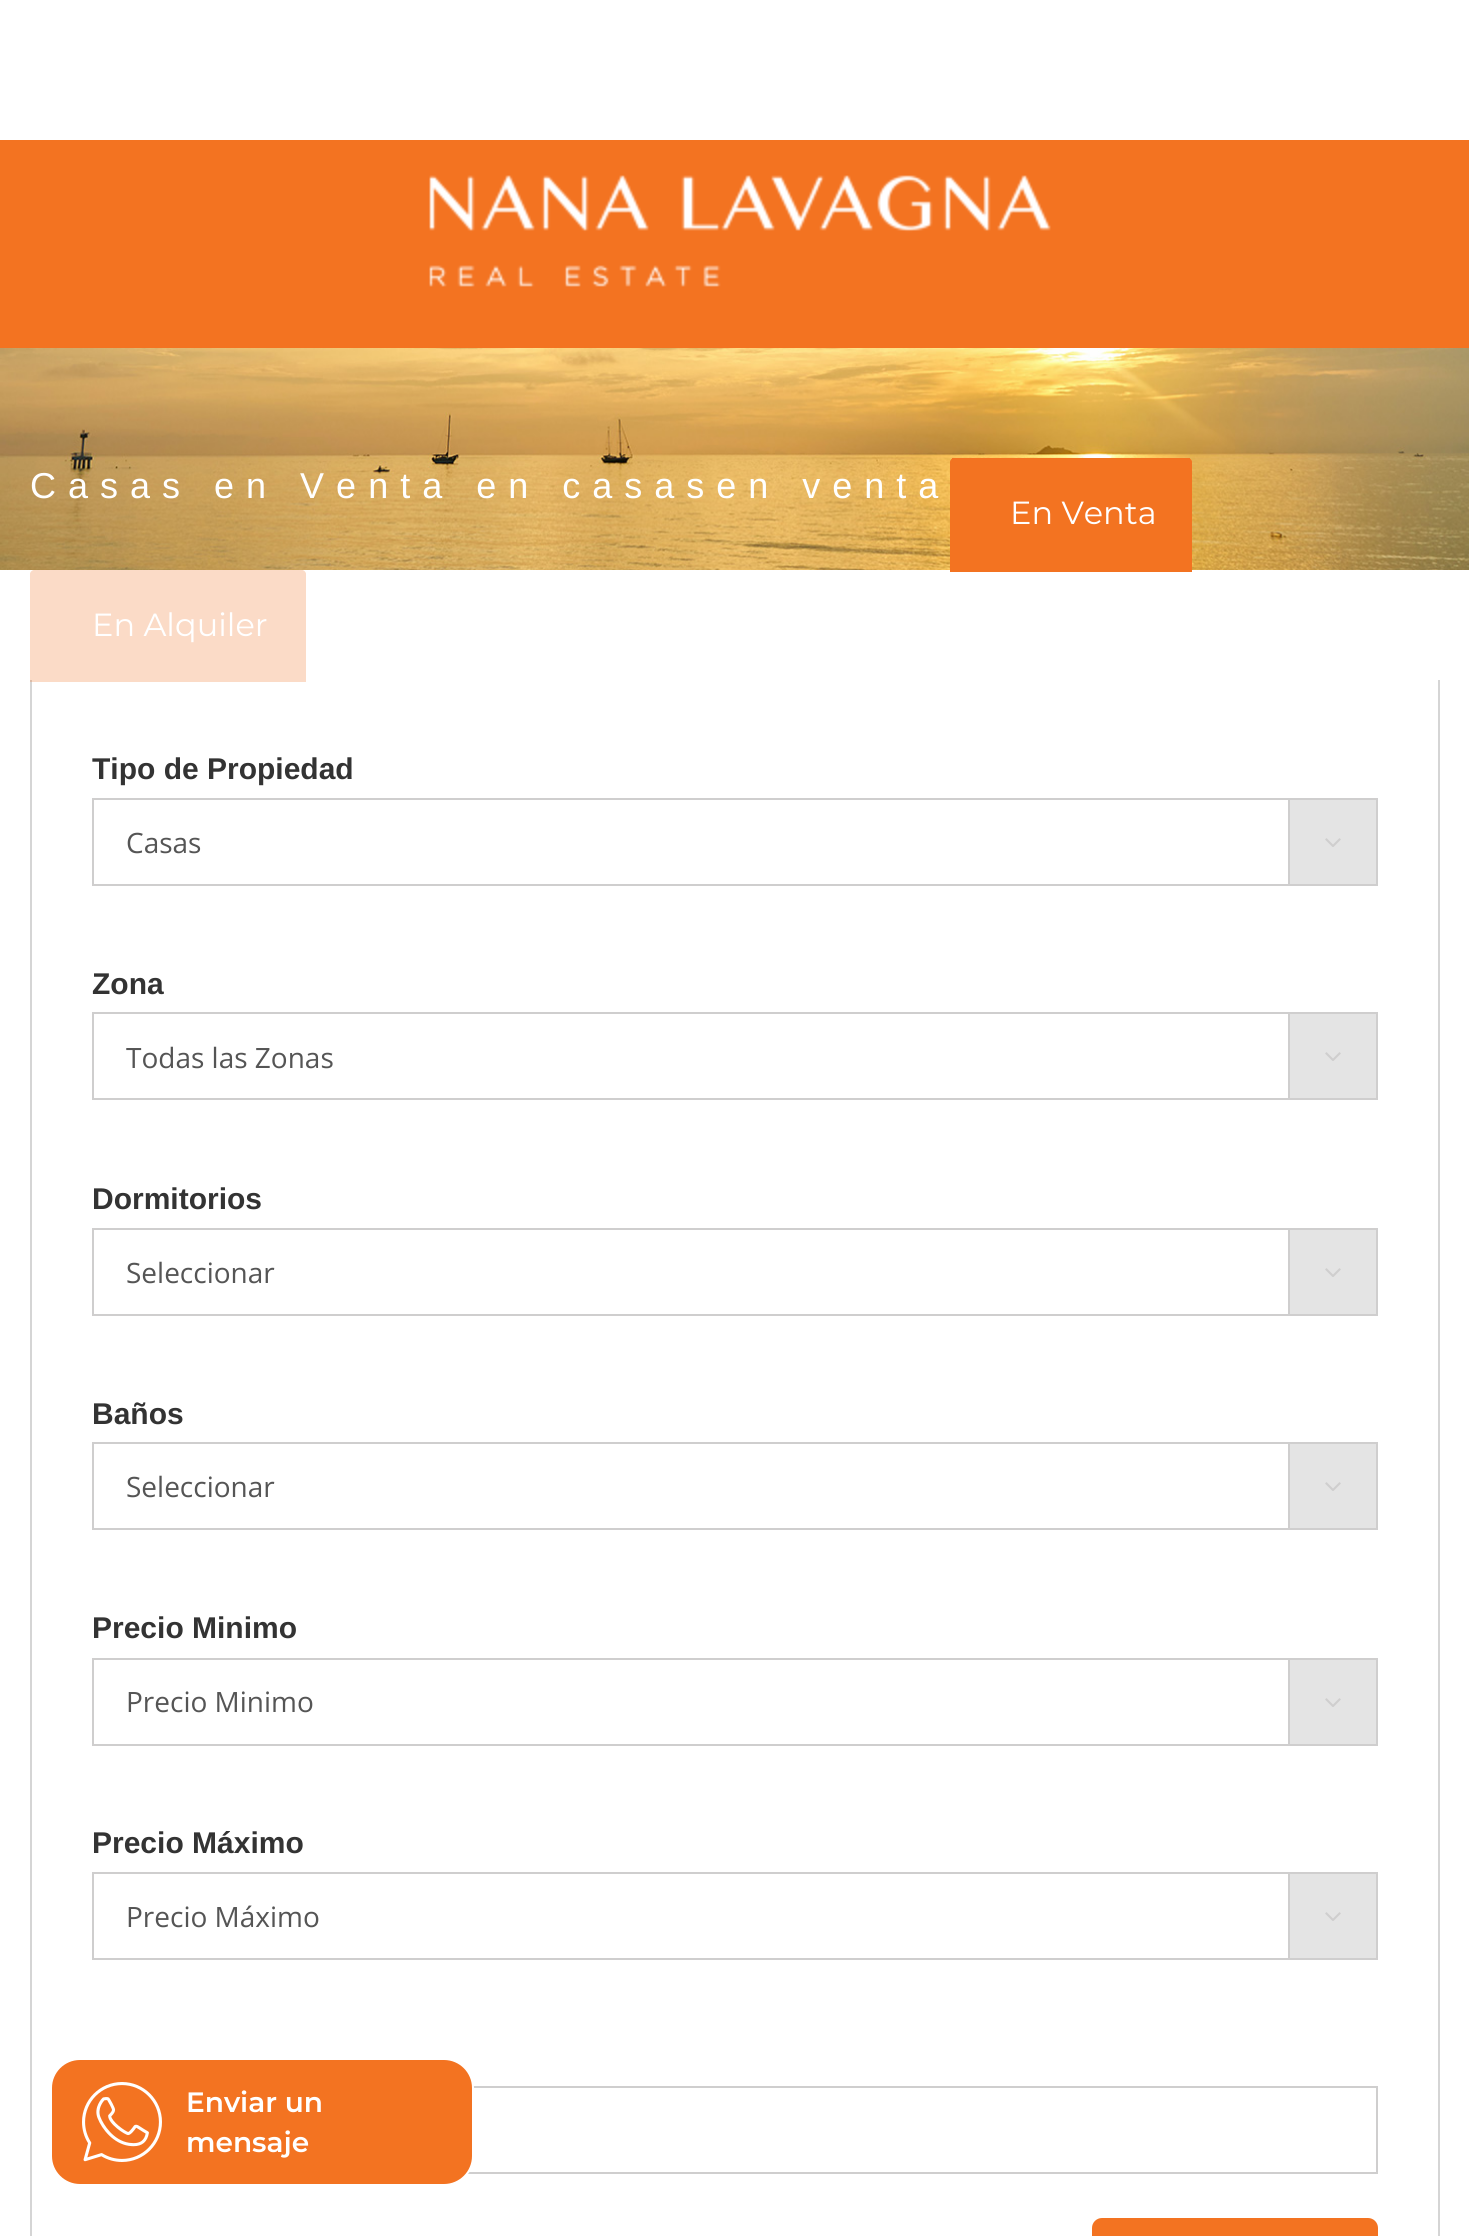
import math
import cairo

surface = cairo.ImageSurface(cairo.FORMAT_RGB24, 1469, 2236)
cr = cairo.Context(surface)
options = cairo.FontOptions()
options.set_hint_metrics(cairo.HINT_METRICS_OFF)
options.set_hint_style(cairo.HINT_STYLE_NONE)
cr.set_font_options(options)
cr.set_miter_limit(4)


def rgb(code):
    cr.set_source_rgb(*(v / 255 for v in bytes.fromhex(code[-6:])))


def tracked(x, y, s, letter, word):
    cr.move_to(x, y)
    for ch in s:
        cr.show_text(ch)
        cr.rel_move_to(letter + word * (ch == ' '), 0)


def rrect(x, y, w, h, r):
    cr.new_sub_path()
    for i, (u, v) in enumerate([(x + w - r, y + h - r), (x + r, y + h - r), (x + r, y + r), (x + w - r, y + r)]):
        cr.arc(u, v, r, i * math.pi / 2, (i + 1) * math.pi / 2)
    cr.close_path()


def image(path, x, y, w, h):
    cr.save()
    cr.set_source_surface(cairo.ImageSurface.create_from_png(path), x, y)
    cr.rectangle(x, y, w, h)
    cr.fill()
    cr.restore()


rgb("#ffffff")
cr.paint()
rgb("#f37321")
cr.rectangle(0, 140, 1469, 208)
cr.fill()
image("img/1.png", 429, 175, 622, 112)
image("img/2.png", 0, 348, 1469, 222)
cr.new_path()
cr.move_to(954, 458)
cr.line_to(1188, 458)
cr.curve_to(1190, 458, 1192, 460, 1192, 462)
cr.line_to(1192, 572)
cr.line_to(950, 572)
cr.line_to(950, 462)
cr.curve_to(950, 460, 952, 458, 954, 458)
cr.close_path()
cr.fill()
cr.rectangle(952, 458, 238, 1)
cr.fill()
rgb("#d5d5d5")
cr.rectangle(30, 680, 2, 1556)
cr.fill()
cr.set_source_rgba(0.953, 0.451, 0.129, 0.25)
cr.new_path()
cr.move_to(34, 570)
cr.line_to(302, 570)
cr.curve_to(304, 570, 306, 572, 306, 574)
cr.line_to(306, 682)
cr.line_to(30, 682)
cr.line_to(30, 574)
cr.curve_to(30, 572, 32, 570, 34, 570)
cr.close_path()
cr.fill()
rgb("#d5d5d5")
cr.rectangle(1438, 680, 2, 1556)
cr.fill()
cr.rectangle(93, 799, 1284, 86)
rgb("#cfcece")
cr.stroke()
rgb("#e4e4e4")
cr.rectangle(1289, 799, 88, 86)
cr.fill_preserve()
rgb("#cfcece")
cr.stroke()
image("img/3.png", 1325, 838, 16, 9)
cr.rectangle(93, 1013, 1284, 86)
cr.stroke()
rgb("#e4e4e4")
cr.rectangle(1289, 1013, 88, 86)
cr.fill_preserve()
rgb("#cfcece")
cr.stroke()
image("img/3.png", 1325, 1052, 16, 9)
cr.rectangle(93, 1229, 1284, 86)
cr.stroke()
rgb("#e4e4e4")
cr.rectangle(1289, 1229, 88, 86)
cr.fill_preserve()
rgb("#cfcece")
cr.stroke()
image("img/3.png", 1325, 1268, 16, 9)
cr.rectangle(93, 1443, 1284, 86)
cr.stroke()
rgb("#e4e4e4")
cr.rectangle(1289, 1443, 88, 86)
cr.fill_preserve()
rgb("#cfcece")
cr.stroke()
image("img/3.png", 1325, 1482, 16, 9)
cr.rectangle(93, 1659, 1284, 86)
cr.stroke()
rgb("#e4e4e4")
cr.rectangle(1289, 1659, 88, 86)
cr.fill_preserve()
rgb("#cfcece")
cr.stroke()
image("img/3.png", 1325, 1698, 16, 9)
cr.rectangle(93, 1873, 1284, 86)
cr.stroke()
rgb("#e4e4e4")
cr.rectangle(1289, 1873, 88, 86)
cr.fill_preserve()
rgb("#cfcece")
cr.stroke()
image("img/3.png", 1325, 1912, 16, 9)
cr.rectangle(93, 2087, 1284, 86)
cr.stroke()
rgb("#f37321")
rrect(1092, 2218, 286, 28, 10)
cr.fill()
rrect(51, 2059, 422, 126, 29)
cr.fill_preserve()
rgb("#ffffff")
cr.stroke()
image("img/4.png", 82, 2082, 80, 80)
cr.select_font_face("Liberation Sans")
cr.set_font_size(36)
tracked(30, 498, "Casas en Venta en casasen venta", 12, 0)
cr.select_font_face("Montserrat")
cr.set_font_size(32)
cr.move_to(1010, 524)
cr.show_text("En Venta")
cr.move_to(92, 636)
cr.show_text("En Alquiler")
cr.select_font_face("Liberation Sans", cairo.FONT_SLANT_NORMAL, cairo.FONT_WEIGHT_BOLD)
cr.set_font_size(30)
rgb("#333333")
cr.move_to(92, 779)
cr.show_text("Tipo de Propiedad")
cr.select_font_face("Open Sans")
cr.set_font_size(28)
rgb("#555555")
cr.move_to(126, 853)
cr.show_text("Casas")
cr.select_font_face("Liberation Sans", cairo.FONT_SLANT_NORMAL, cairo.FONT_WEIGHT_BOLD)
cr.set_font_size(30)
rgb("#333333")
cr.move_to(92, 994)
cr.show_text("Zona")
cr.select_font_face("Open Sans")
cr.set_font_size(28)
rgb("#555555")
cr.move_to(126, 1068)
cr.show_text("Todas las Zonas")
cr.select_font_face("Liberation Sans", cairo.FONT_SLANT_NORMAL, cairo.FONT_WEIGHT_BOLD)
cr.set_font_size(30)
rgb("#333333")
cr.move_to(92, 1209)
cr.show_text("Dormitorios")
cr.select_font_face("Open Sans")
cr.set_font_size(28)
rgb("#555555")
cr.move_to(126, 1283)
cr.show_text("Seleccionar")
cr.select_font_face("Liberation Sans", cairo.FONT_SLANT_NORMAL, cairo.FONT_WEIGHT_BOLD)
cr.set_font_size(30)
rgb("#333333")
cr.move_to(92, 1424)
cr.show_text("Baños")
cr.select_font_face("Open Sans")
cr.set_font_size(28)
rgb("#555555")
cr.move_to(126, 1497)
cr.show_text("Seleccionar")
cr.select_font_face("Liberation Sans", cairo.FONT_SLANT_NORMAL, cairo.FONT_WEIGHT_BOLD)
cr.set_font_size(30)
rgb("#333333")
cr.move_to(92, 1638)
cr.show_text("Precio Minimo")
cr.select_font_face("Open Sans")
cr.set_font_size(28)
rgb("#555555")
cr.move_to(126, 1712)
cr.show_text("Precio Minimo")
cr.select_font_face("Liberation Sans", cairo.FONT_SLANT_NORMAL, cairo.FONT_WEIGHT_BOLD)
cr.set_font_size(30)
rgb("#333333")
cr.move_to(92, 1853)
cr.show_text("Precio Máximo")
cr.select_font_face("Open Sans")
cr.set_font_size(28)
rgb("#555555")
cr.move_to(126, 1927)
cr.show_text("Precio Máximo")
cr.select_font_face("Montserrat SemiBold")
rgb("#ffffff")
cr.move_to(186, 2112)
cr.show_text("Enviar un")
cr.move_to(186, 2152)
cr.show_text("mensaje")
surface.write_to_png("page.png")
